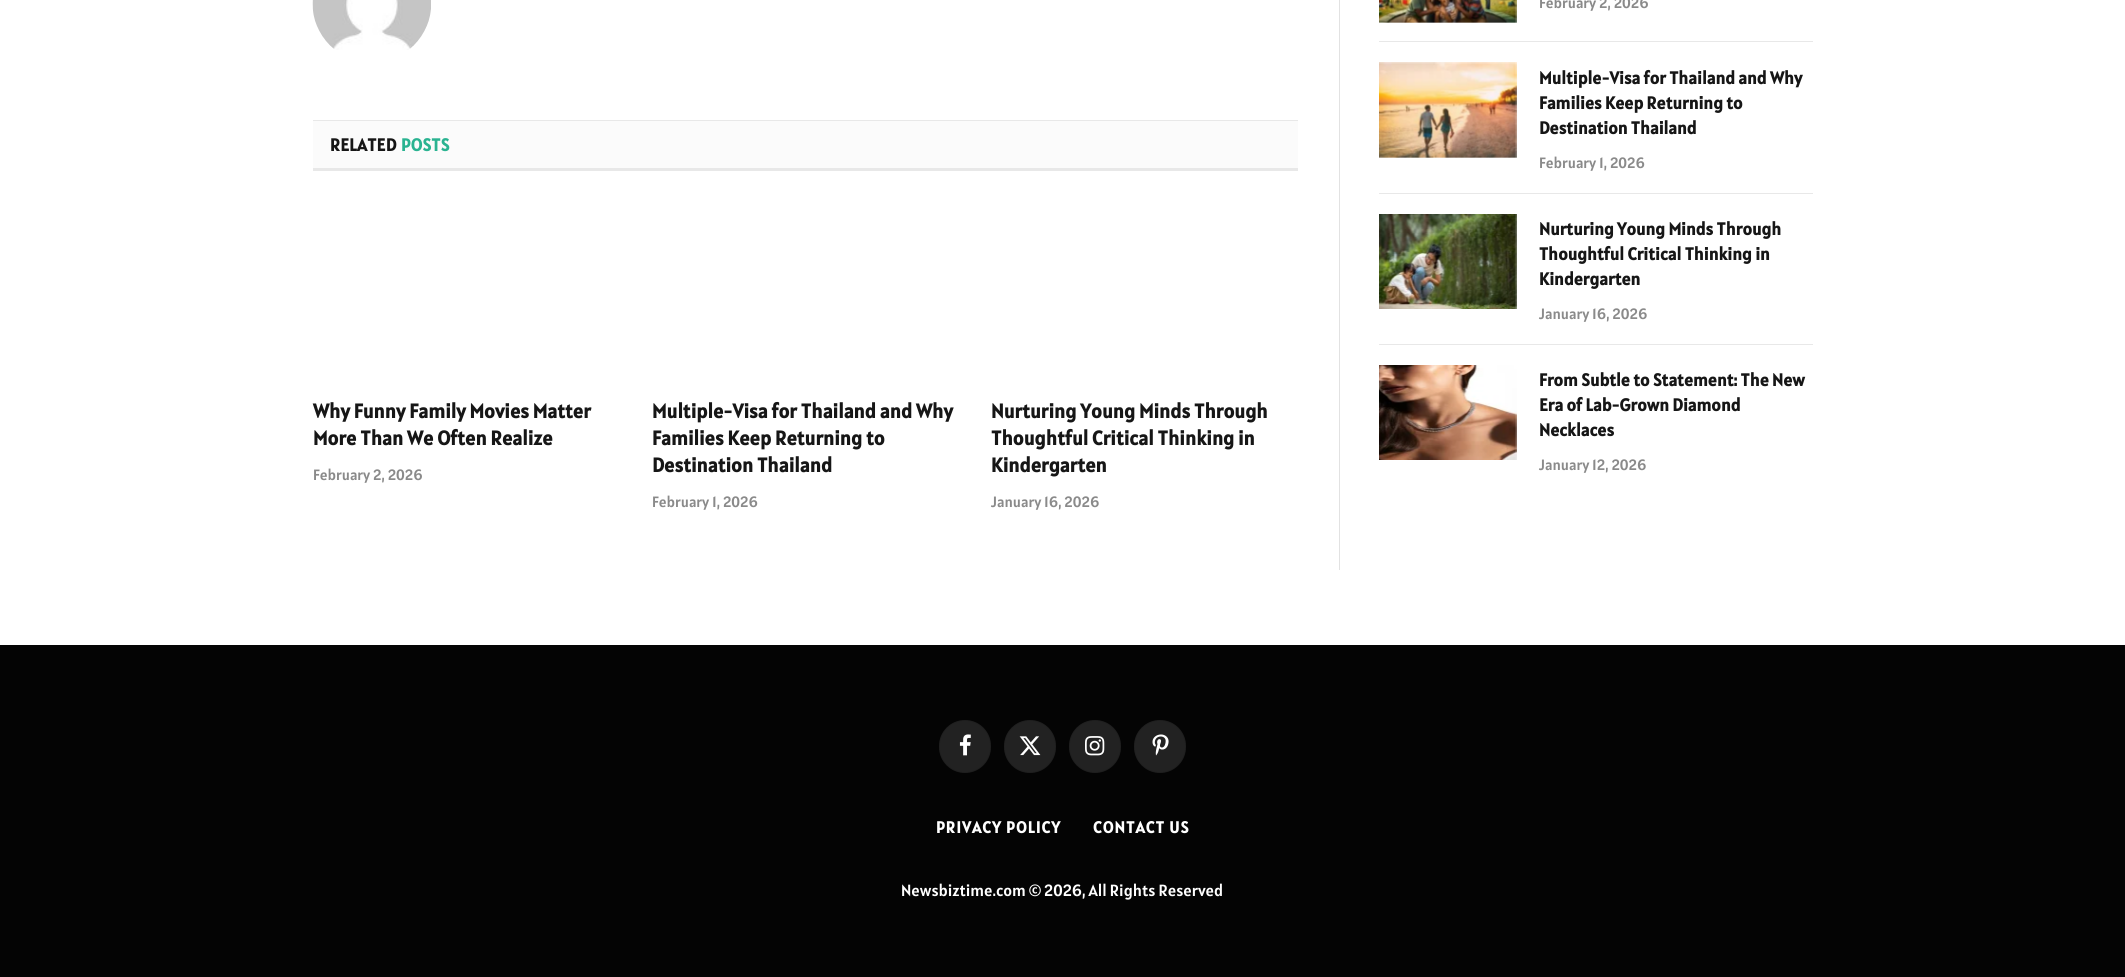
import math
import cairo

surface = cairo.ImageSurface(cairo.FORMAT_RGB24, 2125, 977)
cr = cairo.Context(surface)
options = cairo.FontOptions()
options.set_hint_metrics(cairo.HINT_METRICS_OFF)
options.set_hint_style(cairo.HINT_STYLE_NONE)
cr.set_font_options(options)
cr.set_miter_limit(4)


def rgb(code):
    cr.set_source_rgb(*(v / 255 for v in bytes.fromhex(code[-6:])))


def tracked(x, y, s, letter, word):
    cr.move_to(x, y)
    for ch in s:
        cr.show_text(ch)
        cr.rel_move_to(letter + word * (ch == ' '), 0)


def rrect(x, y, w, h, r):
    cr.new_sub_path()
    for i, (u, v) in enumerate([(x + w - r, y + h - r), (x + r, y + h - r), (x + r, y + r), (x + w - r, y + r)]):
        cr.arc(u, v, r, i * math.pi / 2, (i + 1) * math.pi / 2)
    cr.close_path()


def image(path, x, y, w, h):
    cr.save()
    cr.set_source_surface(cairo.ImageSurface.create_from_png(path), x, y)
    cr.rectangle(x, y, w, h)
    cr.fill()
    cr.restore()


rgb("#ffffff")
cr.paint()
image("img/1.png", 312, 0, 119, 50)
for x, y, w, h, color in [
    (313, 121, 985, 47, "#fbfbfb"),
    (313, 120, 985, 1, "#e8e8e8"),
    (313, 168, 985, 3, "#e8e8e8"),
    (1339, 0, 1, 570, "#e2e2e2"),
]:
    rgb(color)
    cr.rectangle(x, y, w, h)
    cr.fill()
image("img/2.png", 1379, 0, 138, 23)
rgb("#e8e8e8")
cr.rectangle(1379, 41, 434, 1)
cr.fill()
image("img/3.png", 1379, 62, 138, 96)
cr.rectangle(1379, 193, 434, 1)
cr.fill()
image("img/4.png", 1379, 214, 138, 95)
cr.rectangle(1379, 344, 434, 1)
cr.fill()
image("img/5.png", 1379, 365, 138, 95)
rgb("#040404")
cr.rectangle(0, 645, 2125, 332)
cr.fill()
rgb("#222222")
rrect(939, 720, 52, 53, 26)
cr.fill()
rrect(939.5, 720.5, 51, 52, 25.5)
cr.set_source_rgba(0, 0, 0, 0.09)
cr.set_line_width(1)
cr.stroke()
image("img/6.png", 959, 734, 12, 22)
rgb("#222222")
rrect(1004, 720, 52, 53, 26)
cr.fill()
rrect(1004.5, 720.5, 51, 52, 25.5)
cr.set_source_rgba(0, 0, 0, 0.09)
cr.stroke()
image("img/7.png", 1019, 736, 22, 20)
rgb("#222222")
rrect(1069, 720, 52, 53, 26)
cr.fill()
rrect(1069.5, 720.5, 51, 52, 25.5)
cr.set_source_rgba(0, 0, 0, 0.09)
cr.stroke()
image("img/8.png", 1085, 736, 20, 20)
rgb("#222222")
rrect(1134, 720, 52, 53, 26)
cr.fill()
rrect(1134.5, 720.5, 51, 52, 25.5)
cr.set_source_rgba(0, 0, 0, 0.09)
cr.stroke()
image("img/9.png", 1152, 734, 17, 22)
cr.select_font_face("Alatsi", cairo.FONT_SLANT_NORMAL, cairo.FONT_WEIGHT_BOLD)
cr.set_font_size(17.5)
rgb("#161616")
tracked(330, 151, "RELATED", 0.25, 0)
rgb("#2ab391")
tracked(401, 151, "POSTS", 0.25, 0)
cr.set_font_size(20)
rgb("#161616")
cr.move_to(313, 418)
cr.show_text("Why Funny Family Movies Matter")
cr.move_to(313, 445)
cr.show_text("More Than We Often Realize")
cr.select_font_face("Alatsi")
cr.set_font_size(15)
rgb("#8a8a8a")
cr.move_to(313, 480)
cr.show_text("February 2, 2026")
cr.select_font_face("Alatsi", cairo.FONT_SLANT_NORMAL, cairo.FONT_WEIGHT_BOLD)
cr.set_font_size(20)
rgb("#161616")
for x, y, s in [
    (652, 418, "Multiple-Visa for Thailand and Why"),
    (652, 445, "Families Keep Returning to"),
    (652, 472, "Destination Thailand"),
]:
    cr.move_to(x, y)
    cr.show_text(s)
cr.select_font_face("Alatsi")
cr.set_font_size(15)
rgb("#8a8a8a")
cr.move_to(652, 507)
cr.show_text("February 1, 2026")
cr.select_font_face("Alatsi", cairo.FONT_SLANT_NORMAL, cairo.FONT_WEIGHT_BOLD)
cr.set_font_size(20)
rgb("#161616")
for x, y, s in [
    (991, 418, "Nurturing Young Minds Through"),
    (991, 445, "Thoughtful Critical Thinking in"),
    (991, 472, "Kindergarten"),
]:
    cr.move_to(x, y)
    cr.show_text(s)
cr.select_font_face("Alatsi")
cr.set_font_size(15)
rgb("#8a8a8a")
cr.move_to(991, 507)
cr.show_text("January 16, 2026")
cr.move_to(1539, 8)
cr.show_text("February 2, 2026")
cr.select_font_face("Alatsi", cairo.FONT_SLANT_NORMAL, cairo.FONT_WEIGHT_BOLD)
cr.set_font_size(17.5)
rgb("#161616")
for x, y, s in [
    (1539, 84, "Multiple-Visa for Thailand and Why"),
    (1539, 109, "Families Keep Returning to"),
    (1539, 134, "Destination Thailand"),
]:
    cr.move_to(x, y)
    cr.show_text(s)
cr.select_font_face("Alatsi")
cr.set_font_size(15)
rgb("#8a8a8a")
cr.move_to(1539, 168)
cr.show_text("February 1, 2026")
cr.select_font_face("Alatsi", cairo.FONT_SLANT_NORMAL, cairo.FONT_WEIGHT_BOLD)
cr.set_font_size(17.5)
rgb("#161616")
for x, y, s in [
    (1539, 235, "Nurturing Young Minds Through"),
    (1539, 260, "Thoughtful Critical Thinking in"),
    (1539, 285, "Kindergarten"),
]:
    cr.move_to(x, y)
    cr.show_text(s)
cr.select_font_face("Alatsi")
cr.set_font_size(15)
rgb("#8a8a8a")
cr.move_to(1539, 319)
cr.show_text("January 16, 2026")
cr.select_font_face("Alatsi", cairo.FONT_SLANT_NORMAL, cairo.FONT_WEIGHT_BOLD)
cr.set_font_size(17.5)
rgb("#161616")
for x, y, s in [
    (1539, 386, "From Subtle to Statement: The New"),
    (1539, 411, "Era of Lab-Grown Diamond"),
    (1539, 436, "Necklaces"),
]:
    cr.move_to(x, y)
    cr.show_text(s)
cr.select_font_face("Alatsi")
cr.set_font_size(15)
rgb("#8a8a8a")
cr.move_to(1539, 470)
cr.show_text("January 12, 2026")
cr.select_font_face("Alatsi", cairo.FONT_SLANT_NORMAL, cairo.FONT_WEIGHT_BOLD)
cr.set_font_size(16.25)
rgb("#ffffff")
tracked(936, 833, "PRIVACY POLICY", 1.1, 0)
tracked(1093, 833, "CONTACT US", 1.1, 0)
cr.select_font_face("Alatsi")
cr.move_to(901, 896)
cr.show_text("Newsbiztime.com © 2026, All Rights Reserved")
surface.write_to_png("page.png")
